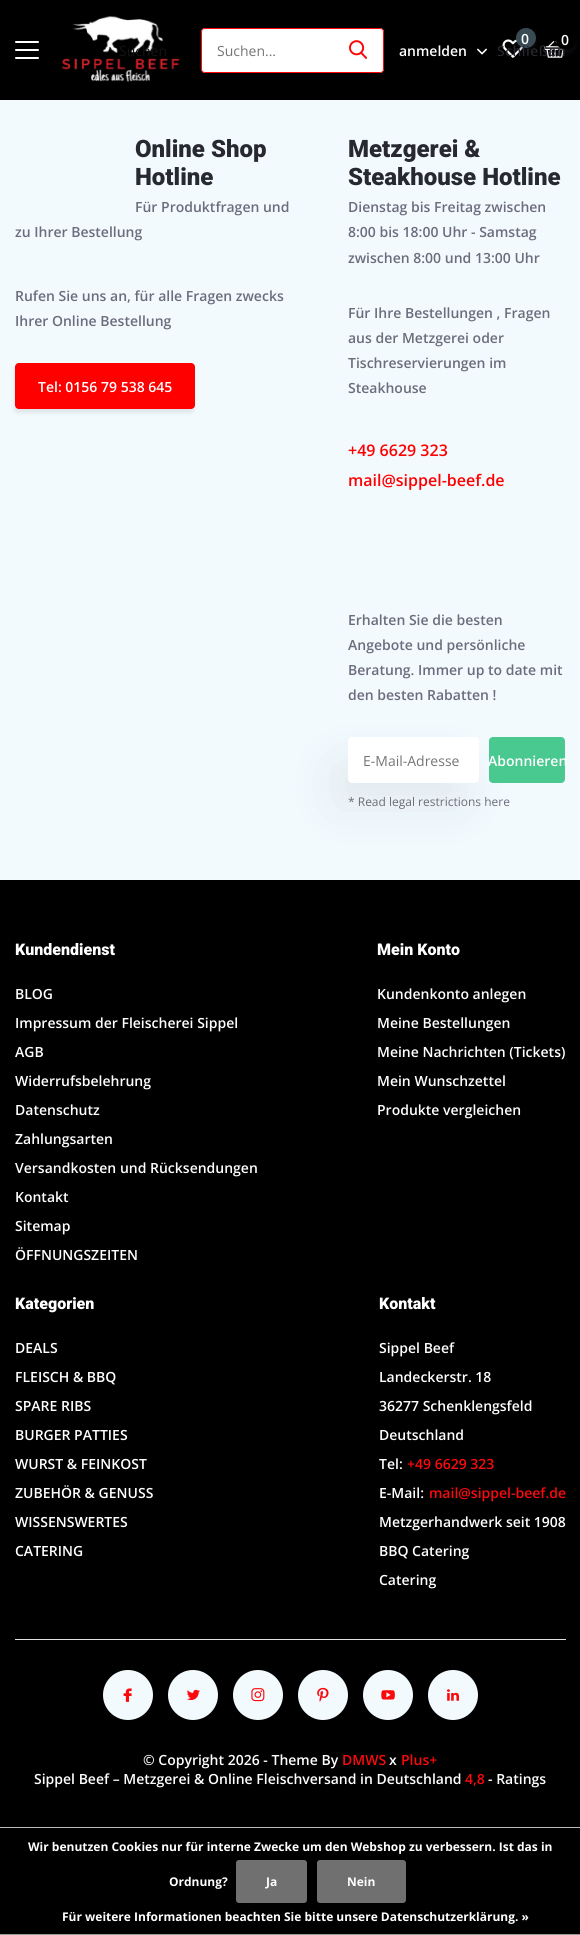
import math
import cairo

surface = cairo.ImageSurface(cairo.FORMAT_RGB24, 580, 1935)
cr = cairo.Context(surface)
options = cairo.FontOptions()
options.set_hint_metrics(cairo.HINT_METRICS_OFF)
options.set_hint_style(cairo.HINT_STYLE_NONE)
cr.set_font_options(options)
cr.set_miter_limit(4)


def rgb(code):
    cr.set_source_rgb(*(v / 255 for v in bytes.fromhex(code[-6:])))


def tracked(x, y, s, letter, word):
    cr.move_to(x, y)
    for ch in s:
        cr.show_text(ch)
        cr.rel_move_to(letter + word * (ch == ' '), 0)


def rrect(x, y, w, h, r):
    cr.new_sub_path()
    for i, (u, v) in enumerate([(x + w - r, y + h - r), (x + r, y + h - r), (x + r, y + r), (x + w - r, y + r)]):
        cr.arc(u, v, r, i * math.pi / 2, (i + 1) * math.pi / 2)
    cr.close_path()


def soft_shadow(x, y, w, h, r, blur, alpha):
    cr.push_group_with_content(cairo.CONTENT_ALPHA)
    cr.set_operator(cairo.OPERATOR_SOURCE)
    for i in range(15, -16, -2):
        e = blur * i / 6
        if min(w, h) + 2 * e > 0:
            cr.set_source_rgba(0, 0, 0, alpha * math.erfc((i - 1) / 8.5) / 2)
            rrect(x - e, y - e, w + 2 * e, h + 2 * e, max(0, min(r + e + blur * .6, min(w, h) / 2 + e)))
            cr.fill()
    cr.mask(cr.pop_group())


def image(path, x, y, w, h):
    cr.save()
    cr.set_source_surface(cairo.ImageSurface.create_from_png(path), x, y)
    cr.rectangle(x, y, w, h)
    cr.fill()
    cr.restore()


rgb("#999999")
cr.paint()
rgb("#000000")
cr.rectangle(0, 0, 580, 100)
cr.fill()
rgb("#ffffff")
rrect(15, 41, 24, 2, 1)
cr.fill()
rrect(15, 49, 24, 2, 1)
cr.fill()
rrect(15, 57, 24, 2, 1)
cr.fill()
image("img/1.png", 61, 16, 119, 66)
image("img/2.png", 502, 39, 21, 19)
rgb("#282830")
soft_shadow(516, 32, 20, 20, 10, 2, 0.25)
rgb("#394a54")
cr.arc(526, 38, 10, 0, 2 * math.pi)
cr.fill()
image("img/3.png", 544, 41, 22, 17)
rgb("#282830")
soft_shadow(556, 34, 20, 20, 10, 2, 0.25)
rgb("#000000")
cr.arc(566, 40, 10, 0, 2 * math.pi)
cr.fill()
rgb("#ffffff")
cr.new_path()
cr.move_to(205, 28)
cr.line_to(334, 28)
cr.line_to(334, 73)
cr.line_to(205, 73)
cr.curve_to(203, 73, 201, 71, 201, 69)
cr.line_to(201, 32)
cr.curve_to(201, 30, 203, 28, 205, 28)
cr.close_path()
cr.fill()
rgb("#f90909")
cr.set_fill_rule(cairo.FILL_RULE_EVEN_ODD)
cr.new_path()
cr.move_to(205, 28)
cr.line_to(334, 28)
cr.line_to(334, 73)
cr.line_to(205, 73)
cr.curve_to(203, 73, 201, 71, 201, 69)
cr.line_to(201, 32)
cr.curve_to(201, 30, 203, 28, 205, 28)
cr.close_path()
cr.move_to(205, 29)
cr.line_to(334, 29)
cr.line_to(334, 72)
cr.line_to(205, 72)
cr.curve_to(203, 72, 202, 71, 202, 69)
cr.line_to(202, 32)
cr.curve_to(202, 30, 203, 29, 205, 29)
cr.close_path()
cr.fill()
rgb("#ffffff")
cr.new_path()
cr.move_to(334, 28)
cr.line_to(380, 28)
cr.curve_to(382, 28, 384, 30, 384, 32)
cr.line_to(384, 69)
cr.curve_to(384, 71, 382, 73, 380, 73)
cr.line_to(334, 73)
cr.close_path()
cr.fill()
rgb("#f90909")
cr.new_path()
cr.move_to(334, 28)
cr.line_to(380, 28)
cr.curve_to(382, 28, 384, 30, 384, 32)
cr.line_to(384, 69)
cr.curve_to(384, 71, 382, 73, 380, 73)
cr.line_to(334, 73)
cr.close_path()
cr.move_to(334, 29)
cr.line_to(380, 29)
cr.curve_to(382, 29, 383, 30, 383, 32)
cr.line_to(383, 69)
cr.curve_to(383, 71, 382, 72, 380, 72)
cr.line_to(334, 72)
cr.close_path()
cr.fill()
image("img/4.png", 349, 40, 19, 19)
image("img/5.png", 477, 48, 10, 7)
for x, y, w, h, color in [
    (0, 880, 580, 947, "#000000"),
    (0, 1828, 580, 106, "#000000"),
    (0, 100, 580, 780, "#f2fafe"),
]:
    rgb(color)
    cr.rectangle(x, y, w, h)
    cr.fill()
rgb("#000000")
soft_shadow(14, 367, 180, 46, 4, 2, 0.08)
rgb("#ff0000")
rrect(15, 363, 180, 46, 4)
cr.fill()
rgb("#28384a")
soft_shadow(333, 762, 131, 46, 4, 25, 0.08)
rgb("#ffffff")
rrect(348, 737, 131, 46, 4)
cr.fill()
rgb("#49c98f")
rrect(489, 737, 76, 46, 4)
cr.fill()
rgb("#e2e2e2")
cr.rectangle(15, 1639, 551, 1)
cr.fill()
rgb("#f2fafe")
cr.arc(128, 1695, 25, 0, 2 * math.pi)
cr.fill()
image("img/6.png", 123, 1688, 9, 14)
cr.arc(193, 1695, 25, 0, 2 * math.pi)
cr.fill()
image("img/7.png", 187, 1689, 13, 12)
cr.arc(258, 1695, 25, 0, 2 * math.pi)
cr.fill()
image("img/8.png", 251, 1688, 14, 14)
cr.arc(323, 1695, 25, 0, 2 * math.pi)
cr.fill()
image("img/9.png", 317, 1687, 12, 15)
cr.arc(388, 1695, 25, 0, 2 * math.pi)
cr.fill()
image("img/10.png", 381, 1690, 14, 10)
cr.arc(453, 1695, 25, 0, 2 * math.pi)
cr.fill()
image("img/11.png", 447, 1689, 12, 12)
rgb("#bbbbbb")
cr.rectangle(0, 1827, 580, 1)
cr.fill()
rgb("#707070")
rrect(236, 1860, 71, 43, 3)
cr.fill()
rrect(317, 1860, 89, 43, 3)
cr.fill()
cr.select_font_face("Open Sans SemiBold")
cr.set_font_size(14)
rgb("#ffffff")
cr.move_to(521, 44)
cr.show_text("0")
cr.move_to(561, 45)
cr.show_text("0")
cr.select_font_face("Open Sans")
rgb("#757575")
cr.move_to(217, 56)
cr.show_text("Suchen...")
cr.select_font_face("Open Sans SemiBold")
rgb("#ffffff")
cr.move_to(399, 56)
cr.show_text("anmelden")
cr.select_font_face("Open Sans")
rgb("#131313")
cr.move_to(119, 56)
cr.show_text("Suchen")
cr.select_font_face("Open Sans Medium")
rgb("#282830")
tracked(497, 56, "Schließen", 0.5, 0)
cr.select_font_face("Roboto Black")
cr.set_font_size(24)
cr.move_to(135, 157)
cr.show_text("Online Shop")
cr.move_to(135, 185)
cr.show_text("Hotline")
cr.select_font_face("Open Sans SemiBold")
cr.set_font_size(14)
rgb("#6c6c7c")
for x, y, s in [
    (135, 212, "Für Produktfragen und"),
    (15, 237, "zu Ihrer Bestellung"),
    (15, 301, "Rufen Sie uns an, für alle Fragen zwecks"),
    (15, 326, "Ihrer Online Bestellung"),
]:
    cr.move_to(x, y)
    cr.show_text(s)
rgb("#ffffff")
cr.move_to(38, 392)
cr.show_text("Tel: 0156 79 538 645")
cr.select_font_face("Roboto Black")
cr.set_font_size(24)
rgb("#282830")
cr.move_to(348, 157)
cr.show_text("Metzgerei &")
cr.move_to(348, 185)
cr.show_text("Steakhouse Hotline")
cr.select_font_face("Open Sans SemiBold")
cr.set_font_size(14)
rgb("#6c6c7c")
for x, y, s in [
    (348, 212, "Dienstag bis Freitag zwischen"),
    (348, 237, "8:00 bis 18:00 Uhr - Samstag"),
    (348, 263, "zwischen 8:00 und 13:00 Uhr"),
    (348, 318, "Für Ihre Bestellungen , Fragen"),
    (348, 343, "aus der Metzgerei oder"),
    (348, 368, "Tischreservierungen im"),
    (348, 393, "Steakhouse"),
]:
    cr.move_to(x, y)
    cr.show_text(s)
cr.set_font_size(16)
rgb("#ff0000")
cr.move_to(348, 456)
cr.show_text("+49 6629 323")
cr.move_to(348, 486)
cr.show_text("mail@sippel-beef.de")
cr.set_font_size(14)
rgb("#6c6c7c")
for x, y, s in [
    (348, 625, "Erhalten Sie die besten"),
    (348, 650, "Angebote und persönliche"),
    (348, 675, "Beratung. Immer up to date mit"),
    (348, 700, "den besten Rabatten !"),
]:
    cr.move_to(x, y)
    cr.show_text(s)
cr.select_font_face("Open Sans")
rgb("#757575")
cr.move_to(363, 766)
cr.show_text("E-Mail-Adresse")
cr.select_font_face("Open Sans SemiBold")
rgb("#ffffff")
cr.move_to(488, 766)
cr.show_text("Abonnieren")
cr.select_font_face("Open Sans")
cr.set_font_size(12)
rgb("#6c6c7c")
cr.move_to(348, 806)
cr.show_text("* Read legal restrictions here")
cr.select_font_face("Roboto Black")
cr.set_font_size(16)
rgb("#ffffff")
cr.move_to(15, 955)
cr.show_text("Kundendienst")
cr.select_font_face("Open Sans SemiBold")
cr.set_font_size(14)
for x, y, s in [
    (15, 999, "BLOG"),
    (15, 1028, "Impressum der Fleischerei Sippel"),
    (15, 1057, "AGB"),
    (15, 1086, "Widerrufsbelehrung"),
    (15, 1115, "Datenschutz"),
    (15, 1144, "Zahlungsarten"),
    (15, 1173, "Versandkosten und Rücksendungen"),
    (15, 1202, "Kontakt"),
    (15, 1231, "Sitemap"),
    (15, 1260, "ÖFFNUNGSZEITEN"),
]:
    cr.move_to(x, y)
    cr.show_text(s)
cr.select_font_face("Roboto Black")
cr.set_font_size(16)
cr.move_to(377, 955)
cr.show_text("Mein Konto")
cr.select_font_face("Open Sans SemiBold")
cr.set_font_size(14)
for x, y, s in [
    (377, 999, "Kundenkonto anlegen"),
    (377, 1028, "Meine Bestellungen"),
    (377, 1057, "Meine Nachrichten (Tickets)"),
    (377, 1086, "Mein Wunschzettel"),
    (377, 1115, "Produkte vergleichen"),
]:
    cr.move_to(x, y)
    cr.show_text(s)
cr.select_font_face("Roboto Black")
cr.set_font_size(16)
cr.move_to(15, 1309)
cr.show_text("Kategorien")
cr.select_font_face("Open Sans SemiBold")
cr.set_font_size(14)
for x, y, s in [
    (15, 1353, "DEALS"),
    (15, 1382, "FLEISCH & BBQ"),
    (15, 1411, "SPARE RIBS"),
    (15, 1440, "BURGER PATTIES"),
    (15, 1469, "WURST & FEINKOST"),
    (15, 1498, "ZUBEHÖR & GENUSS"),
    (15, 1527, "WISSENSWERTES"),
    (15, 1556, "CATERING"),
]:
    cr.move_to(x, y)
    cr.show_text(s)
cr.select_font_face("Roboto Black")
cr.set_font_size(16)
cr.move_to(379, 1309)
cr.show_text("Kontakt")
cr.select_font_face("Open Sans SemiBold")
cr.set_font_size(14)
for x, y, s in [
    (379, 1353, "Sippel Beef"),
    (379, 1382, "Landeckerstr. 18"),
    (379, 1411, "36277 Schenklengsfeld"),
    (379, 1440, "Deutschland"),
    (379, 1469, "Tel:"),
]:
    cr.move_to(x, y)
    cr.show_text(s)
rgb("#fc090d")
cr.move_to(407, 1469)
cr.show_text("+49 6629 323")
rgb("#ffffff")
cr.move_to(379, 1498)
cr.show_text("E-Mail:")
rgb("#fc090d")
cr.move_to(429, 1498)
cr.show_text("mail@sippel-beef.de")
rgb("#ffffff")
for x, y, s in [
    (379, 1527, "Metzgerhandwerk seit 1908"),
    (379, 1556, "BBQ Catering"),
    (379, 1585, "Catering"),
    (143, 1765, "© Copyright 2026 - Theme By"),
]:
    cr.move_to(x, y)
    cr.show_text(s)
rgb("#fc090d")
cr.move_to(342, 1765)
cr.show_text("DMWS")
rgb("#ffffff")
cr.move_to(389, 1765)
cr.show_text("x")
rgb("#fc090d")
cr.move_to(401, 1765)
cr.show_text("Plus+")
rgb("#ffffff")
cr.move_to(34, 1784)
cr.show_text("Sippel Beef – Metzgerei & Online Fleischversand in Deutschland")
rgb("#fc090d")
cr.move_to(465, 1784)
cr.show_text("4,8")
rgb("#ffffff")
cr.move_to(488, 1784)
cr.show_text("- Ratings")
cr.select_font_face("Open Sans", cairo.FONT_SLANT_NORMAL, cairo.FONT_WEIGHT_BOLD)
cr.set_font_size(12)
for x, y, s in [
    (28, 1851, "Wir benutzen Cookies nur für interne Zwecke um den Webshop zu verbessern. Ist das in"),
    (169, 1886, "Ordnung?"),
    (266, 1886, "Ja"),
    (347, 1886, "Nein"),
    (62, 1921, "Für weitere Informationen beachten Sie bitte unsere Datenschutzerklärung. »"),
]:
    cr.move_to(x, y)
    cr.show_text(s)
surface.write_to_png("page.png")
